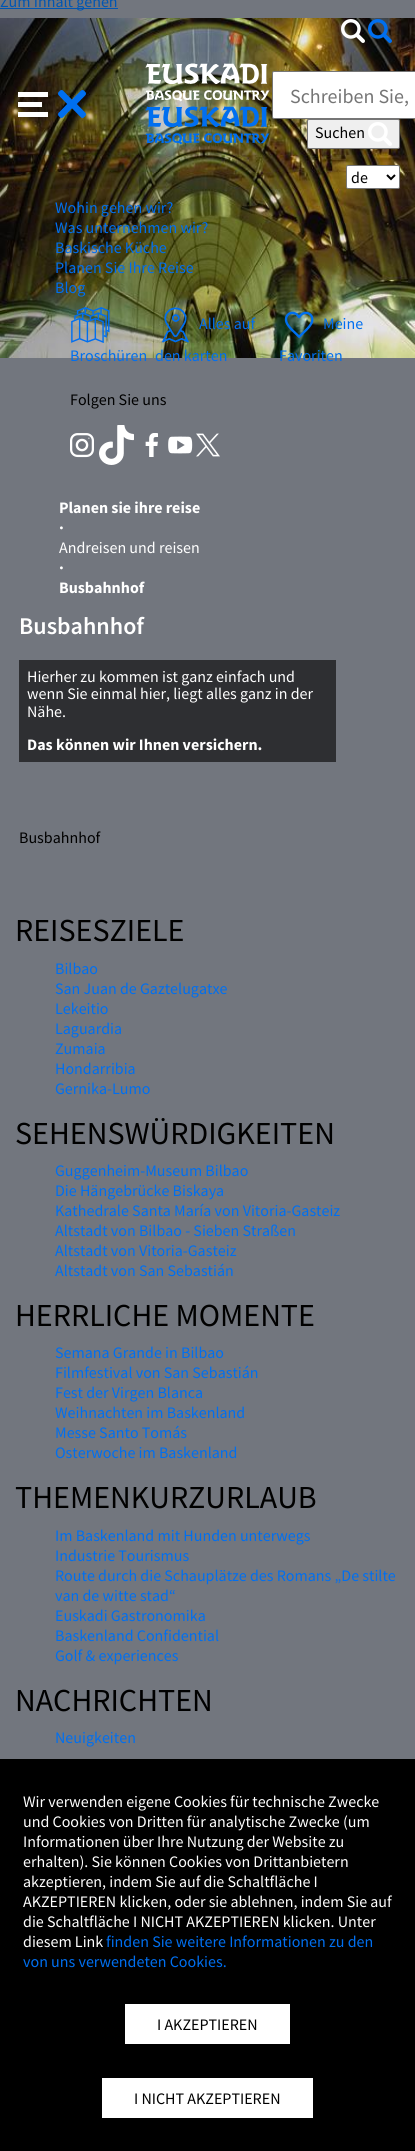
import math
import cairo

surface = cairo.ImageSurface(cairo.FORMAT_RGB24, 415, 2151)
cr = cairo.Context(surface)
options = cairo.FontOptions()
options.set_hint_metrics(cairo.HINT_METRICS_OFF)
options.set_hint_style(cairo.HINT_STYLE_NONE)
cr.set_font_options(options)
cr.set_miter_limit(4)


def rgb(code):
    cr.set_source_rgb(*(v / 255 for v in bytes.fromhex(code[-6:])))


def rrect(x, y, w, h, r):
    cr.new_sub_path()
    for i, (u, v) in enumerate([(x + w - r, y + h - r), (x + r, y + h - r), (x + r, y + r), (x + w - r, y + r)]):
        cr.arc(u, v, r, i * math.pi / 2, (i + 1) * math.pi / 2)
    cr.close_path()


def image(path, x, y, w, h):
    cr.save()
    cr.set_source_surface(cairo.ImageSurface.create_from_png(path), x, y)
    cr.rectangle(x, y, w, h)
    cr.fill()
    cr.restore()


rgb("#72767e")
cr.paint()
rgb("#0056b3")
cr.rectangle(0, 8, 118, 1)
cr.fill()
image("img/1.png", 0, 18, 415, 340)
rgb("#ffffff")
cr.rectangle(18, 92, 30, 5)
cr.fill()
image("img/2.png", 58, 90, 28, 28)
cr.rectangle(18, 102, 24, 5)
cr.fill()
cr.rectangle(18, 112, 30, 5)
cr.fill()
image("img/3.png", 145, 63, 125, 39)
image("img/4.png", 145, 106, 125, 39)
image("img/5.png", 341, 19, 24, 24)
image("img/6.png", 368, 19, 24, 24)
rrect(272.5, 71.5, 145, 47, 1.5)
cr.fill_preserve()
rgb("#767676")
cr.set_line_width(1)
cr.stroke()
rgb("#efefef")
rrect(307.5, 119.5, 92, 29, 1.5)
cr.fill_preserve()
rgb("#767676")
cr.stroke()
image("img/7.png", 368, 122, 24, 24)
rgb("#ffffff")
rrect(346.5, 165.5, 53, 23, 1.5)
cr.fill_preserve()
rgb("#767676")
cr.stroke()
cr.new_path()
cr.move_to(387, 175)
cr.line_to(391, 179)
cr.line_to(395, 175)
rgb("#000000")
cr.set_line_width(2)
cr.stroke()
image("img/8.png", 71, 307, 39, 36)
image("img/9.png", 162, 307, 27, 36)
image("img/10.png", 284, 311, 30, 28)
image("img/11.png", 70, 433, 24, 25)
image("img/12.png", 99, 425, 35, 40)
image("img/13.png", 145, 433, 13, 24)
image("img/14.png", 168, 436, 25, 18)
image("img/15.png", 196, 433, 24, 24)
for x, y, w, h, color in [
    (19, 660, 317, 102, "#2e2f32"),
    (0, 1759, 415, 392, "#000000"),
    (125, 2004, 165, 40, "#ffffff"),
    (102, 2078, 211, 40, "#ffffff"),
]:
    rgb(color)
    cr.rectangle(x, y, w, h)
    cr.fill()
cr.select_font_face("Source Sans Pro")
cr.set_font_size(16)
rgb("#0056b3")
cr.move_to(0, 7)
cr.show_text("Zum Inhalt gehen")
cr.set_font_size(20)
rgb("#757575")
cr.move_to(290, 103)
cr.show_text("Schreiben Sie,")
cr.set_font_size(16)
rgb("#000000")
cr.move_to(315, 138)
cr.show_text("Suchen")
cr.move_to(351, 183)
cr.show_text("de")
rgb("#006ff0")
for x, y, s in [
    (55, 213, "Wohin gehen wir?"),
    (55, 233, "Was unternehmen wir?"),
    (55, 253, "Baskische Küche"),
    (55, 273, "Planen Sie Ihre Reise"),
    (55, 293, "Blog"),
    (70, 361, "Broschüren"),
    (199, 329, "Alles auf"),
    (155, 361, "den karten"),
    (323, 329, "Meine"),
    (279, 361, "Favoriten"),
]:
    cr.move_to(x, y)
    cr.show_text(s)
rgb("#000000")
cr.move_to(70, 405)
cr.show_text("Folgen Sie uns")
cr.select_font_face("Source Sans Pro", cairo.FONT_SLANT_NORMAL, cairo.FONT_WEIGHT_BOLD)
rgb("#ffffff")
cr.move_to(59, 513)
cr.show_text("Planen sie ihre reise")
cr.move_to(59, 533)
cr.show_text("·")
cr.select_font_face("Source Sans Pro")
cr.move_to(59, 553)
cr.show_text("Andreisen und reisen")
cr.select_font_face("Source Sans Pro", cairo.FONT_SLANT_NORMAL, cairo.FONT_WEIGHT_BOLD)
cr.move_to(59, 573)
cr.show_text("·")
cr.move_to(59, 593)
cr.show_text("Busbahnhof")
cr.select_font_face("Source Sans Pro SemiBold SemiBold")
cr.set_font_size(24)
cr.move_to(19, 634)
cr.show_text("Busbahnhof")
cr.select_font_face("Source Sans Pro")
cr.set_font_size(16)
for x, y, s in [
    (27, 682, "Hierher zu kommen ist ganz einfach und"),
    (27, 699, "wenn Sie einmal hier, liegt alles ganz in der"),
    (27, 717, "Nähe."),
]:
    cr.move_to(x, y)
    cr.show_text(s)
cr.select_font_face("Source Sans Pro", cairo.FONT_SLANT_NORMAL, cairo.FONT_WEIGHT_BOLD)
cr.move_to(27, 750)
cr.show_text("Das können wir Ihnen versichern.")
cr.select_font_face("Source Sans Pro")
rgb("#000000")
cr.move_to(19, 843)
cr.show_text("Busbahnhof")
cr.set_font_size(32)
cr.move_to(15, 941)
cr.show_text("REISESZIELE")
cr.set_font_size(16)
rgb("#006ff0")
for x, y, s in [
    (55, 974, "Bilbao"),
    (55, 994, "San Juan de Gaztelugatxe"),
    (55, 1014, "Lekeitio"),
    (55, 1034, "Laguardia"),
    (55, 1054, "Zumaia"),
    (55, 1074, "Hondarribia"),
    (55, 1094, "Gernika-Lumo"),
]:
    cr.move_to(x, y)
    cr.show_text(s)
cr.set_font_size(32)
rgb("#000000")
cr.move_to(15, 1144)
cr.show_text("SEHENSWÜRDIGKEITEN")
cr.set_font_size(16)
rgb("#006ff0")
for x, y, s in [
    (55, 1176, "Guggenheim-Museum Bilbao"),
    (55, 1196, "Die Hängebrücke Biskaya"),
    (55, 1216, "Kathedrale Santa María von Vitoria-Gasteiz"),
    (55, 1236, "Altstadt von Bilbao - Sieben Straßen"),
    (55, 1256, "Altstadt von Vitoria-Gasteiz"),
    (55, 1276, "Altstadt von San Sebastián"),
]:
    cr.move_to(x, y)
    cr.show_text(s)
cr.set_font_size(32)
rgb("#000000")
cr.move_to(15, 1326)
cr.show_text("HERRLICHE MOMENTE")
cr.set_font_size(16)
rgb("#006ff0")
for x, y, s in [
    (55, 1358, "Semana Grande in Bilbao"),
    (55, 1378, "Filmfestival von San Sebastián"),
    (55, 1398, "Fest der Virgen Blanca"),
    (55, 1418, "Weihnachten im Baskenland"),
    (55, 1438, "Messe Santo Tomás"),
    (55, 1458, "Osterwoche im Baskenland"),
]:
    cr.move_to(x, y)
    cr.show_text(s)
cr.set_font_size(32)
rgb("#000000")
cr.move_to(15, 1508)
cr.show_text("THEMENKURZURLAUB")
cr.set_font_size(16)
rgb("#006ff0")
for x, y, s in [
    (55, 1541, "Im Baskenland mit Hunden unterwegs"),
    (55, 1561, "Industrie Tourismus"),
    (55, 1581, "Route durch die Schauplätze des Romans „De stilte"),
    (55, 1601, "van de witte stad“"),
    (55, 1621, "Euskadi Gastronomika"),
    (55, 1641, "Baskenland Confidential"),
    (55, 1661, "Golf & experiences"),
]:
    cr.move_to(x, y)
    cr.show_text(s)
cr.set_font_size(32)
rgb("#000000")
cr.move_to(15, 1711)
cr.show_text("NACHRICHTEN")
cr.set_font_size(16)
rgb("#006ff0")
cr.move_to(55, 1743)
cr.show_text("Neuigkeiten")
rgb("#ffffff")
for x, y, s in [
    (23, 1807, "Wir verwenden eigene Cookies für technische Zwecke"),
    (23, 1827, "und Cookies von Dritten für analytische Zwecke (um"),
    (23, 1847, "Informationen über Ihre Nutzung der Website zu"),
    (23, 1867, "erhalten). Sie können Cookies von Drittanbietern"),
    (23, 1887, "akzeptieren, indem Sie auf die Schaltfläche I"),
    (23, 1907, "AKZEPTIEREN klicken, oder sie ablehnen, indem Sie auf"),
    (23, 1927, "die Schaltfläche I NICHT AKZEPTIEREN klicken. Unter"),
    (23, 1947, "diesem Link"),
]:
    cr.move_to(x, y)
    cr.show_text(s)
rgb("#006ff0")
cr.move_to(106, 1947)
cr.show_text("finden Sie weitere Informationen zu den")
cr.move_to(23, 1967)
cr.show_text("von uns verwendeten Cookies.")
rgb("#000000")
cr.move_to(157, 2030)
cr.show_text("I AKZEPTIEREN")
cr.move_to(134, 2104)
cr.show_text("I NICHT AKZEPTIEREN")
surface.write_to_png("page.png")
